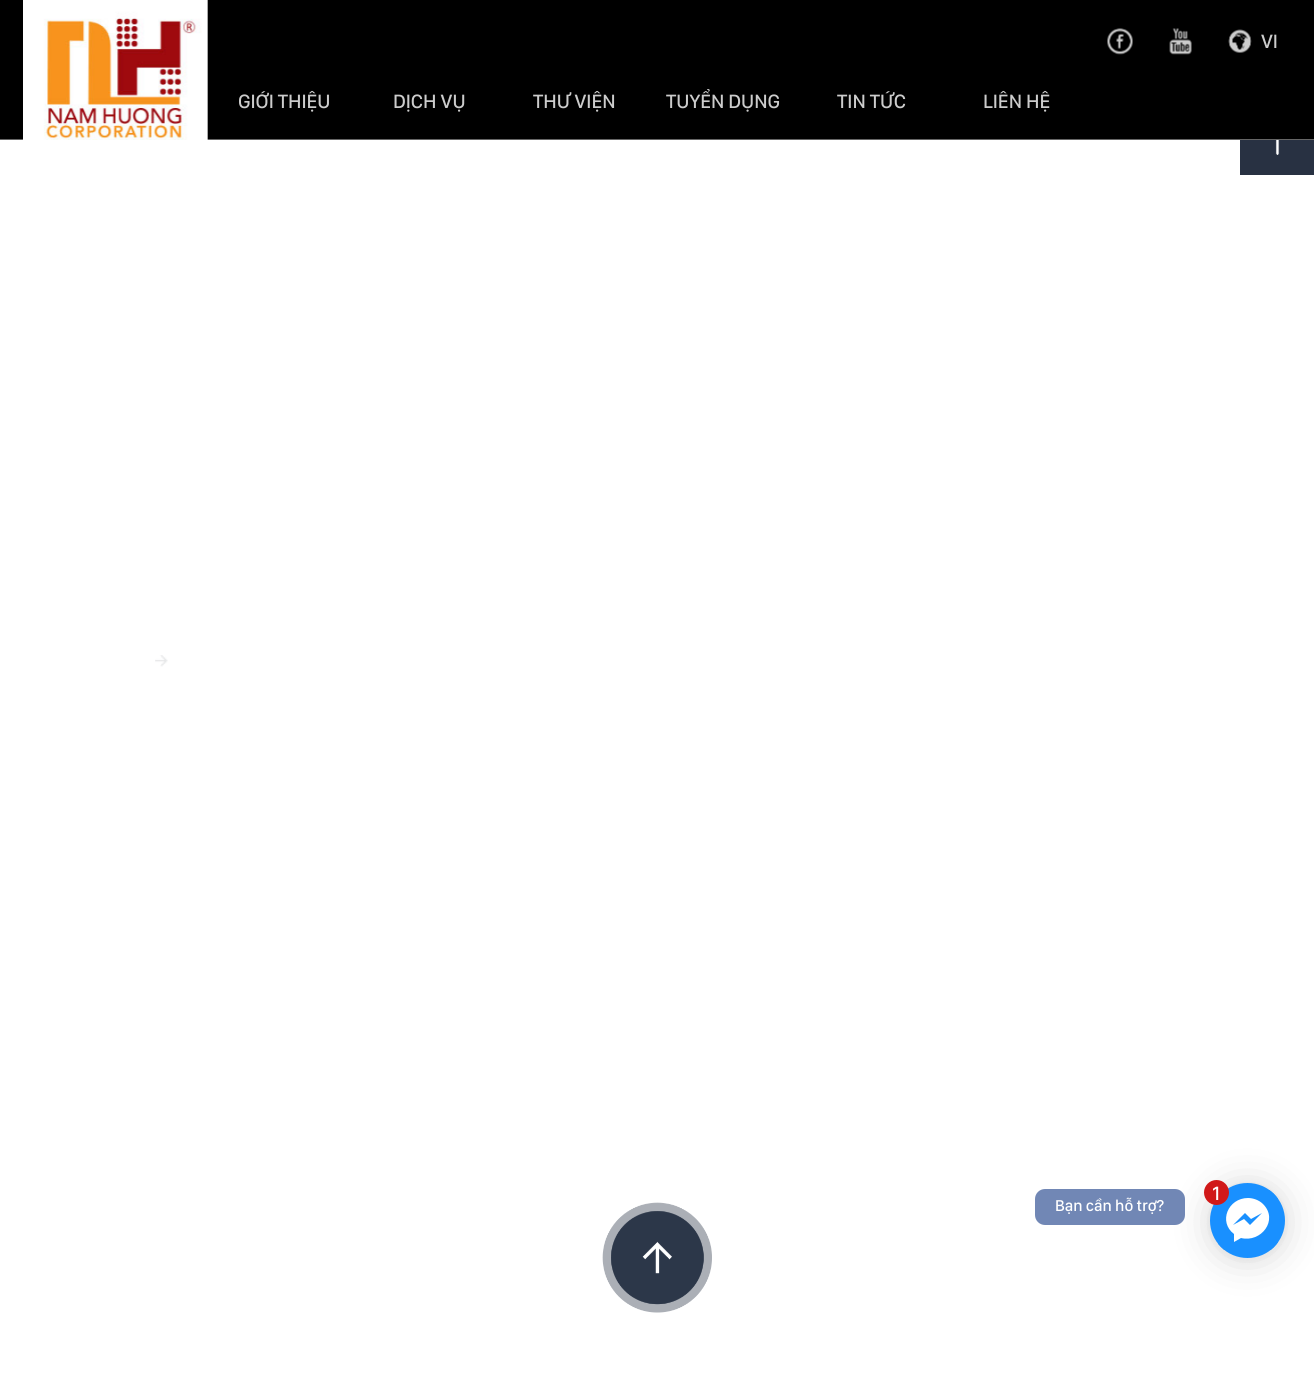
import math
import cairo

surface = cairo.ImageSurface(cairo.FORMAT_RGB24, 1314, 1382)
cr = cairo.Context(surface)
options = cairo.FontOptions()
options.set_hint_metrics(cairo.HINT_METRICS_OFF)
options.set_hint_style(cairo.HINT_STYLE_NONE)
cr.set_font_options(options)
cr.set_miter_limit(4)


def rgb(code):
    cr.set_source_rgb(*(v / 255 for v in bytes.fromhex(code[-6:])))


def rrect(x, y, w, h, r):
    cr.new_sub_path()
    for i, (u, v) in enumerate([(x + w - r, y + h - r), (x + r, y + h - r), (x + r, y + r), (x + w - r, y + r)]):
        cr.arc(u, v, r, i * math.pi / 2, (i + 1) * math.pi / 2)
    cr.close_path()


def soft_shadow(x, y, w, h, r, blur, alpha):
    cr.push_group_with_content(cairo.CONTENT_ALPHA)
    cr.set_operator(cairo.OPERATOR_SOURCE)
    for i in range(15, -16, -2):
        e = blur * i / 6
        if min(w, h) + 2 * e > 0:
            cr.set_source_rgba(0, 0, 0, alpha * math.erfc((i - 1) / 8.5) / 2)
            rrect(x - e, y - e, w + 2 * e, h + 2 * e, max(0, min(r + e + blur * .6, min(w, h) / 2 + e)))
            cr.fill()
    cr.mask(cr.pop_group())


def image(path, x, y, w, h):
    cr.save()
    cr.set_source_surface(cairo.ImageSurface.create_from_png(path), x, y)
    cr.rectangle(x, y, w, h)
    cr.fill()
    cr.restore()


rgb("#ffffff")
cr.paint()
rgb("#000000")
cr.rectangle(0, 0, 1314, 139)
cr.fill()
rgb("#666666")
cr.rectangle(0, 139, 1314, 1)
cr.fill()
image("img/1.png", 23, 0, 185, 140)
image("img/2.png", 1107, 28, 26, 27)
image("img/3.png", 1169, 28, 23, 27)
image("img/4.png", 1228, 29, 24, 24)
rgb("#283142")
cr.rectangle(1240, 140, 74, 35)
cr.fill()
image("img/5.png", 1275, 140, 5, 15)
image("img/6.png", 155, 655, 13, 12)
image("img/7.png", 602, 1202, 110, 111)
rgb("#191919")
soft_shadow(1210, 1185, 75, 75, 37.5, 20, 0.16)
soft_shadow(1210, 1184, 75, 75, 37.5, 4, 0.06)
rgb("#1990ff")
cr.arc(1247.5, 1220.5, 37.5, 0, 2 * math.pi)
cr.fill()
cr.save()
rrect(1210, 1183, 75, 75, 37.5)
cr.clip()
cr.rectangle(1218, 1190, 60, 60)
cr.fill()
cr.restore()
rgb("#ffffff")
cr.new_path()
cr.move_to(1248, 1198)
cr.curve_to(1228, 1198, 1218, 1222, 1234, 1234)
cr.line_to(1234, 1242)
cr.line_to(1241, 1238)
cr.curve_to(1261, 1243, 1279, 1220, 1263, 1204)
cr.curve_to(1259, 1200, 1253, 1198, 1248, 1198)
cr.close_path()
cr.move_to(1250, 1225)
cr.line_to(1244, 1219)
cr.line_to(1233, 1225)
cr.line_to(1245, 1213)
cr.line_to(1251, 1219)
cr.line_to(1262, 1213)
cr.close_path()
cr.fill()
rgb("#d11919")
cr.arc(1216.5, 1192.5, 12.5, 0, 2 * math.pi)
cr.fill()
rgb("#7187b5")
rrect(1035, 1189, 150, 36, 10)
cr.fill()
cr.select_font_face("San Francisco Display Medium")
cr.set_font_size(20)
rgb("#cccccc")
for x, y, s in [
    (1261, 48, "VI"),
    (238, 108, "GIỚI THIỆU"),
    (393, 108, "DỊCH VỤ"),
    (533, 108, "THƯ VIỆN"),
    (666, 108, "TUYỂN DỤNG"),
    (837, 108, "TIN TỨC"),
    (983, 108, "LIÊN HỆ"),
]:
    cr.move_to(x, y)
    cr.show_text(s)
rgb("#ffffff")
cr.move_to(1212, 1200)
cr.show_text("1")
cr.set_font_size(16.25)
cr.move_to(1055, 1211)
cr.show_text("Bạn cần hỗ trợ?")
surface.write_to_png("page.png")
